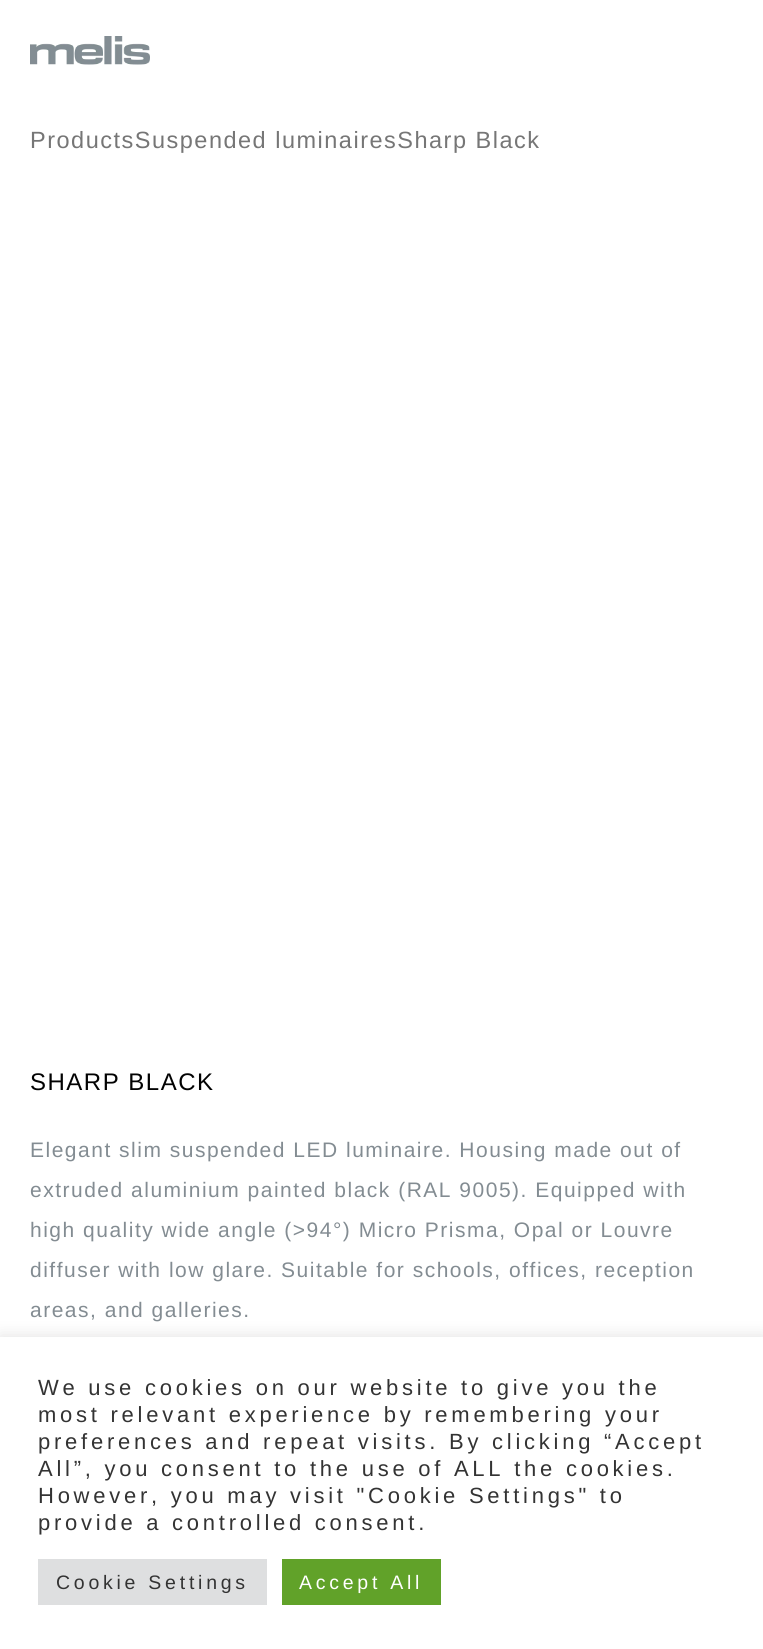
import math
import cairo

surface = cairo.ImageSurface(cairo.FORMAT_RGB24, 763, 1649)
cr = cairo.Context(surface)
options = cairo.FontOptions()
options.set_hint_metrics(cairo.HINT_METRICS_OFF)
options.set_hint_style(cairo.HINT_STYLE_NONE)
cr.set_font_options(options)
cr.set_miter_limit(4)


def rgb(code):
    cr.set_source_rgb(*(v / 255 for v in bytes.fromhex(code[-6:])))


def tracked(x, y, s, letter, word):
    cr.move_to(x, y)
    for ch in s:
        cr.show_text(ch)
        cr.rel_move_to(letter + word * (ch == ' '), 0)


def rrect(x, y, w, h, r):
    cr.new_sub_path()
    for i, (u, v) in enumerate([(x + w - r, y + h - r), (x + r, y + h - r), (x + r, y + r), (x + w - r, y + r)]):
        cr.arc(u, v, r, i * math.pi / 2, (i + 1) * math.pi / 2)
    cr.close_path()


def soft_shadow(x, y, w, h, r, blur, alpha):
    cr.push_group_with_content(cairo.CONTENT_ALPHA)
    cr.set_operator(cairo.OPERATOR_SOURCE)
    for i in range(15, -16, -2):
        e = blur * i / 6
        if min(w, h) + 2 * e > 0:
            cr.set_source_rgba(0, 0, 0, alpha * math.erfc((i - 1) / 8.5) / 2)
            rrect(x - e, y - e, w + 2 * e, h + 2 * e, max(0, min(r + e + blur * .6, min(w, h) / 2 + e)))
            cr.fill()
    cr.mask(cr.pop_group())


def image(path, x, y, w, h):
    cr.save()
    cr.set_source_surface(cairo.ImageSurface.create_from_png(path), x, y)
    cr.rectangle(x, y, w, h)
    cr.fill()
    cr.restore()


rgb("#ffffff")
cr.paint()
image("img/1.png", 30, 36, 120, 29)
rgb("#acabab")
soft_shadow(0, 1335, 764, 314, 0, 7.5, 0.3)
for x, y, w, h, color in [
    (0, 1337, 763, 312, "#ffffff"),
    (38, 1559, 229, 46, "#dedfe0"),
    (282, 1559, 159, 46, "#61a229"),
]:
    rgb(color)
    cr.rectangle(x, y, w, h)
    cr.fill()
cr.select_font_face("Liberation Sans")
cr.set_font_size(23.5)
rgb("#767676")
tracked(30, 148, "ProductsSuspended luminairesSharp Black", 1.5, 0)
cr.set_font_size(24)
rgb("#020202")
tracked(30, 1090, "SHARP BLACK", 1.5, 0)
cr.set_font_size(21)
rgb("#838c92")
for x, y, s in [
    (30, 1157, "Elegant slim suspended LED luminaire. Housing made out of"),
    (30, 1197, "extruded aluminium painted black (RAL 9005). Equipped with"),
    (30, 1237, "high quality wide angle (>94°) Micro Prisma, Opal or Louvre"),
    (30, 1277, "diffuser with low glare. Suitable for schools, offices, reception"),
    (30, 1317, "areas, and galleries."),
]:
    tracked(x, y, s, 1.5, 0)
cr.set_font_size(22)
rgb("#333333")
for x, y, s in [
    (38, 1395, "We use cookies on our website to give you the"),
    (38, 1422, "most relevant experience by remembering your"),
    (38, 1449, "preferences and repeat visits. By clicking “Accept"),
    (38, 1476, "All”, you consent to the use of ALL the cookies."),
    (38, 1503, "However, you may visit \"Cookie Settings\" to"),
    (38, 1530, "provide a controlled consent."),
]:
    tracked(x, y, s, 3.75, 0)
cr.set_font_size(19.5)
tracked(56, 1589, "Cookie Settings", 3.75, 0)
rgb("#ffffff")
tracked(299, 1589, "Accept All", 3.75, 0)
surface.write_to_png("page.png")
